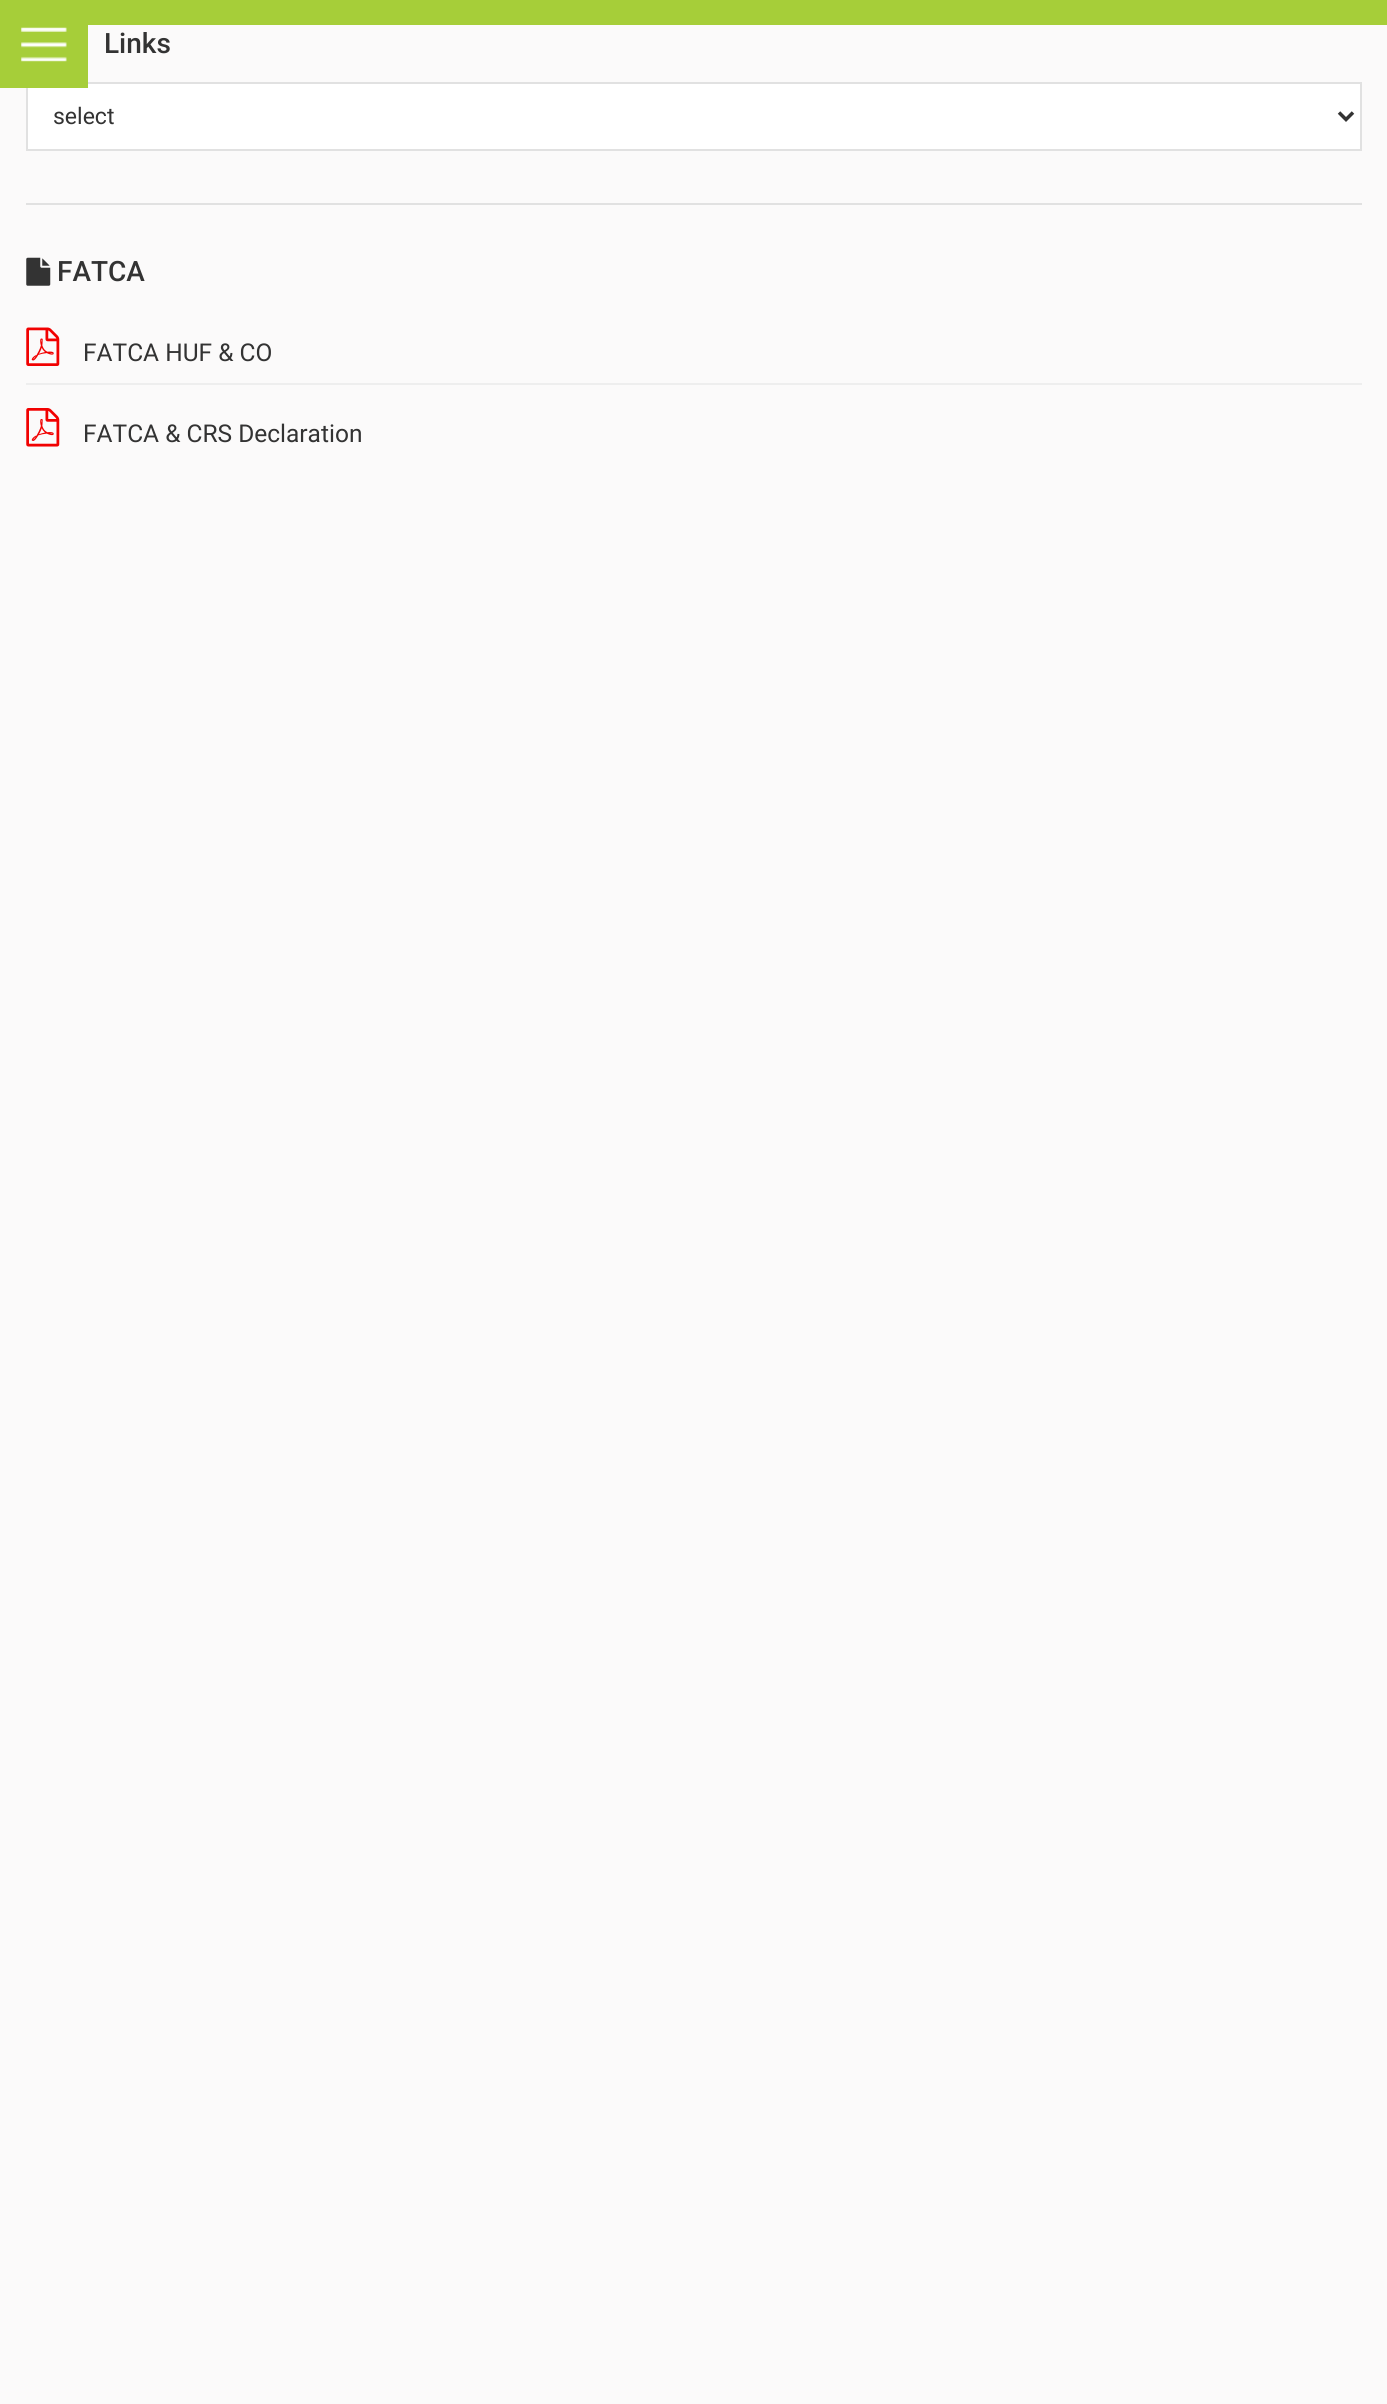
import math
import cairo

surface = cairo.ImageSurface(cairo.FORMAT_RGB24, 1387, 2404)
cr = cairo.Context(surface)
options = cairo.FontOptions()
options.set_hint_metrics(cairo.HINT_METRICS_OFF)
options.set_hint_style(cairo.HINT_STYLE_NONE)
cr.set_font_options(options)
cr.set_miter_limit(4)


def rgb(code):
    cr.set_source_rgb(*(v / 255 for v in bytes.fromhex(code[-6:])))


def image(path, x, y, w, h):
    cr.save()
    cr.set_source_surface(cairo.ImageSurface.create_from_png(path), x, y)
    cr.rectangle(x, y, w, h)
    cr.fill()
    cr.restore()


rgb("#fbfafa")
cr.paint()
rgb("#a6ce39")
cr.rectangle(88, 0, 1299, 25)
cr.fill()
rgb("#e1e1e1")
cr.rectangle(26, 203, 1336, 2)
cr.fill()
rgb("#ffffff")
cr.rectangle(27, 83, 1334, 67)
cr.fill_preserve()
rgb("#e1e1e1")
cr.stroke()
rgb("#a6ce39")
cr.rectangle(0, 0, 88, 88)
cr.fill()
image("img/1.png", 21, 27, 46, 35)
cr.new_path()
cr.move_to(1339, 112.5)
cr.line_to(1346, 119.5)
cr.line_to(1353, 112.5)
rgb("#333333")
cr.set_line_width(3.5)
cr.stroke()
image("img/2.png", 26, 257, 25, 29)
rgb("#eeeeee")
cr.rectangle(26, 383, 1336, 2)
cr.fill()
image("img/3.png", 26, 327, 34, 39)
image("img/4.png", 26, 408, 34, 39)
cr.select_font_face("Roboto Medium")
cr.set_font_size(28)
rgb("#333333")
cr.move_to(104, 53)
cr.show_text("Links")
cr.select_font_face("Roboto")
cr.set_font_size(23)
cr.move_to(53, 124)
cr.show_text("select")
cr.select_font_face("Roboto Medium")
cr.set_font_size(28)
cr.move_to(57, 281)
cr.show_text("FATCA")
cr.select_font_face("Roboto")
cr.set_font_size(24.5)
cr.move_to(83, 361)
cr.show_text("FATCA HUF & CO")
cr.move_to(83, 442)
cr.show_text("FATCA & CRS Declaration")
surface.write_to_png("page.png")
